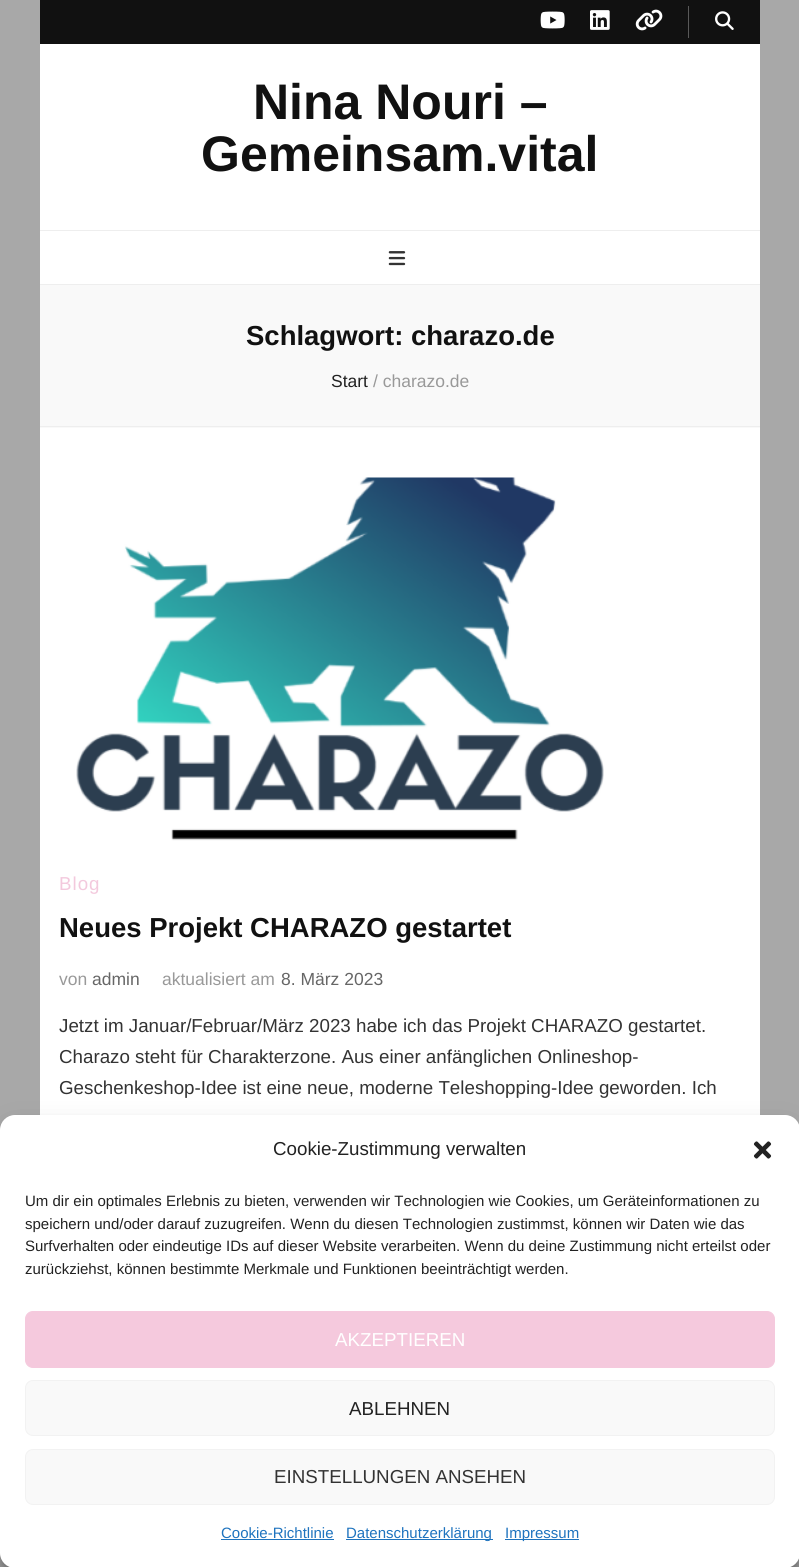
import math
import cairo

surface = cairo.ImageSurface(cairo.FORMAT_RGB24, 799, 1567)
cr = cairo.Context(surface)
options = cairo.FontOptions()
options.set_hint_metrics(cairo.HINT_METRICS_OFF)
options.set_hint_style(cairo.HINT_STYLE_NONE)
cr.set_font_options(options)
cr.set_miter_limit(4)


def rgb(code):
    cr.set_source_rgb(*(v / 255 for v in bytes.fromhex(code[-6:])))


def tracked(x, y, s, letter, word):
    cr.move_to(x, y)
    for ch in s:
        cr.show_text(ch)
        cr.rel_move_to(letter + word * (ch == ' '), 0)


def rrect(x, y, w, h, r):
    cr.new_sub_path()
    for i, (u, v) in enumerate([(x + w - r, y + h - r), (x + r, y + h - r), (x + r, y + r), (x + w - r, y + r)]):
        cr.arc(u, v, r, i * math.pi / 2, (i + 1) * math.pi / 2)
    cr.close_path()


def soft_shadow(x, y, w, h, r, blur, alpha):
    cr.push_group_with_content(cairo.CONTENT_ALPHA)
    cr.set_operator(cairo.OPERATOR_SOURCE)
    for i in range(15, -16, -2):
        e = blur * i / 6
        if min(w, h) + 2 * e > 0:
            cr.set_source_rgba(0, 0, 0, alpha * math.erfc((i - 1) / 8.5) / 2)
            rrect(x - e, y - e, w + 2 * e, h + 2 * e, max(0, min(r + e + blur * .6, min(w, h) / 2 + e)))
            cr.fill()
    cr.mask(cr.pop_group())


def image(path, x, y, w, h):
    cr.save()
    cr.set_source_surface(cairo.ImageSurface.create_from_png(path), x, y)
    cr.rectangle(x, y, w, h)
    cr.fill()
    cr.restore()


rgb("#a8a8a8")
cr.paint()
for x, y, w, h, color in [
    (40, 44, 720, 1071, "#ffffff"),
    (40, 0, 720, 44, "#111111"),
    (688, 6, 1, 32, "#595959"),
]:
    rgb(color)
    cr.rectangle(x, y, w, h)
    cr.fill()
image("img/1.png", 540, 11, 25, 18)
image("img/2.png", 590, 10, 20, 20)
image("img/3.png", 635, 9, 28, 22)
image("img/4.png", 715, 11, 19, 19)
rgb("#eeeeee")
cr.rectangle(40, 230, 720, 1)
cr.fill()
cr.rectangle(40, 284, 720, 1)
cr.fill()
image("img/5.png", 388, 251, 18, 15)
rgb("#f9f9f9")
cr.rectangle(40, 285, 720, 143)
cr.fill()
rgb("#eeeeee")
cr.rectangle(40, 426, 720, 1)
cr.fill()
image("img/6.png", 76, 477, 528, 364)
rgb("#000000")
soft_shadow(0, 1123, 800, 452, 15, 4, 0.23)
soft_shadow(0, 1128, 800, 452, 15, 12.5, 0.19)
rgb("#ffffff")
rrect(0, 1115, 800, 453, 15)
cr.fill()
image("img/7.png", 753, 1141, 19, 18)
rgb("#f5c9dd")
rrect(25.5, 1311.5, 749, 56, 7.5)
cr.fill_preserve()
cr.set_line_width(1)
cr.stroke()
rgb("#f9f9f9")
rrect(25.5, 1380.5, 749, 55, 7.5)
cr.fill_preserve()
rgb("#f2f2f2")
cr.stroke()
rgb("#f9f9f9")
rrect(25.5, 1449.5, 749, 55, 7.5)
cr.fill_preserve()
rgb("#f2f2f2")
cr.stroke()
for x, y, w, h, color in [
    (221, 1539, 113, 1, "#1e73be"),
    (346, 1539, 147, 1, "#1e73be"),
    (505, 1539, 74, 1, "#1e73be"),
]:
    rgb(color)
    cr.rectangle(x, y, w, h)
    cr.fill()
cr.select_font_face("Liberation Sans", cairo.FONT_SLANT_NORMAL, cairo.FONT_WEIGHT_BOLD)
cr.set_font_size(50)
rgb("#111111")
cr.move_to(253, 119)
cr.show_text("Nina Nouri –")
cr.move_to(201, 171)
cr.show_text("Gemeinsam.vital")
cr.set_font_size(27.5)
cr.move_to(246, 345)
cr.show_text("Schlagwort: charazo.de")
cr.select_font_face("Liberation Sans")
cr.set_font_size(17.5)
rgb("#222222")
cr.move_to(331, 387)
cr.show_text("Start")
rgb("#999999")
cr.move_to(373, 387)
cr.show_text("/ charazo.de")
cr.set_font_size(18.75)
rgb("#f3c9dd")
tracked(59, 890, "Blog", 1, 0)
cr.select_font_face("Liberation Sans", cairo.FONT_SLANT_NORMAL, cairo.FONT_WEIGHT_BOLD)
cr.set_font_size(27.5)
rgb("#111111")
cr.move_to(59, 937)
cr.show_text("Neues Projekt CHARAZO gestartet")
cr.select_font_face("Liberation Sans")
cr.set_font_size(17.5)
rgb("#999999")
cr.move_to(59, 985)
cr.show_text("von")
rgb("#666666")
cr.move_to(92, 985)
cr.show_text("admin")
rgb("#999999")
cr.move_to(162, 985)
cr.show_text("aktualisiert am")
rgb("#666666")
cr.move_to(281, 985)
cr.show_text("8. März 2023")
cr.set_font_size(18.75)
rgb("#333333")
for x, y, s in [
    (59, 1032, "Jetzt im Januar/Februar/März 2023 habe ich das Projekt CHARAZO gestartet."),
    (59, 1063, "Charazo steht für Charakterzone. Aus einer anfänglichen Onlineshop-"),
    (59, 1094, "Geschenkeshop-Idee ist eine neue, moderne Teleshopping-Idee geworden. Ich"),
]:
    cr.move_to(x, y)
    cr.show_text(s)
rgb("#222222")
cr.move_to(273, 1155)
cr.show_text("Cookie-Zustimmung verwalten")
cr.set_font_size(15)
for x, y, s in [
    (25, 1206, "Um dir ein optimales Erlebnis zu bieten, verwenden wir Technologien wie Cookies, um Geräteinformationen zu"),
    (25, 1229, "speichern und/oder darauf zuzugreifen. Wenn du diesen Technologien zustimmst, können wir Daten wie das"),
    (25, 1251, "Surfverhalten oder eindeutige IDs auf dieser Website verarbeiten. Wenn du deine Zustimmung nicht erteilst oder"),
    (25, 1274, "zurückziehst, können bestimmte Merkmale und Funktionen beeinträchtigt werden."),
]:
    cr.move_to(x, y)
    cr.show_text(s)
cr.set_font_size(18.75)
rgb("#ffffff")
cr.move_to(335, 1346)
cr.show_text("AKZEPTIEREN")
rgb("#222222")
cr.move_to(349, 1415)
cr.show_text("ABLEHNEN")
rgb("#333333")
cr.move_to(274, 1483)
cr.show_text("EINSTELLUNGEN ANSEHEN")
cr.set_font_size(15)
rgb("#1e73be")
for x, y, s in [
    (221, 1538, "Cookie-Richtlinie"),
    (346, 1538, "Datenschutzerklärung"),
    (505, 1538, "Impressum"),
]:
    cr.move_to(x, y)
    cr.show_text(s)
surface.write_to_png("page.png")
